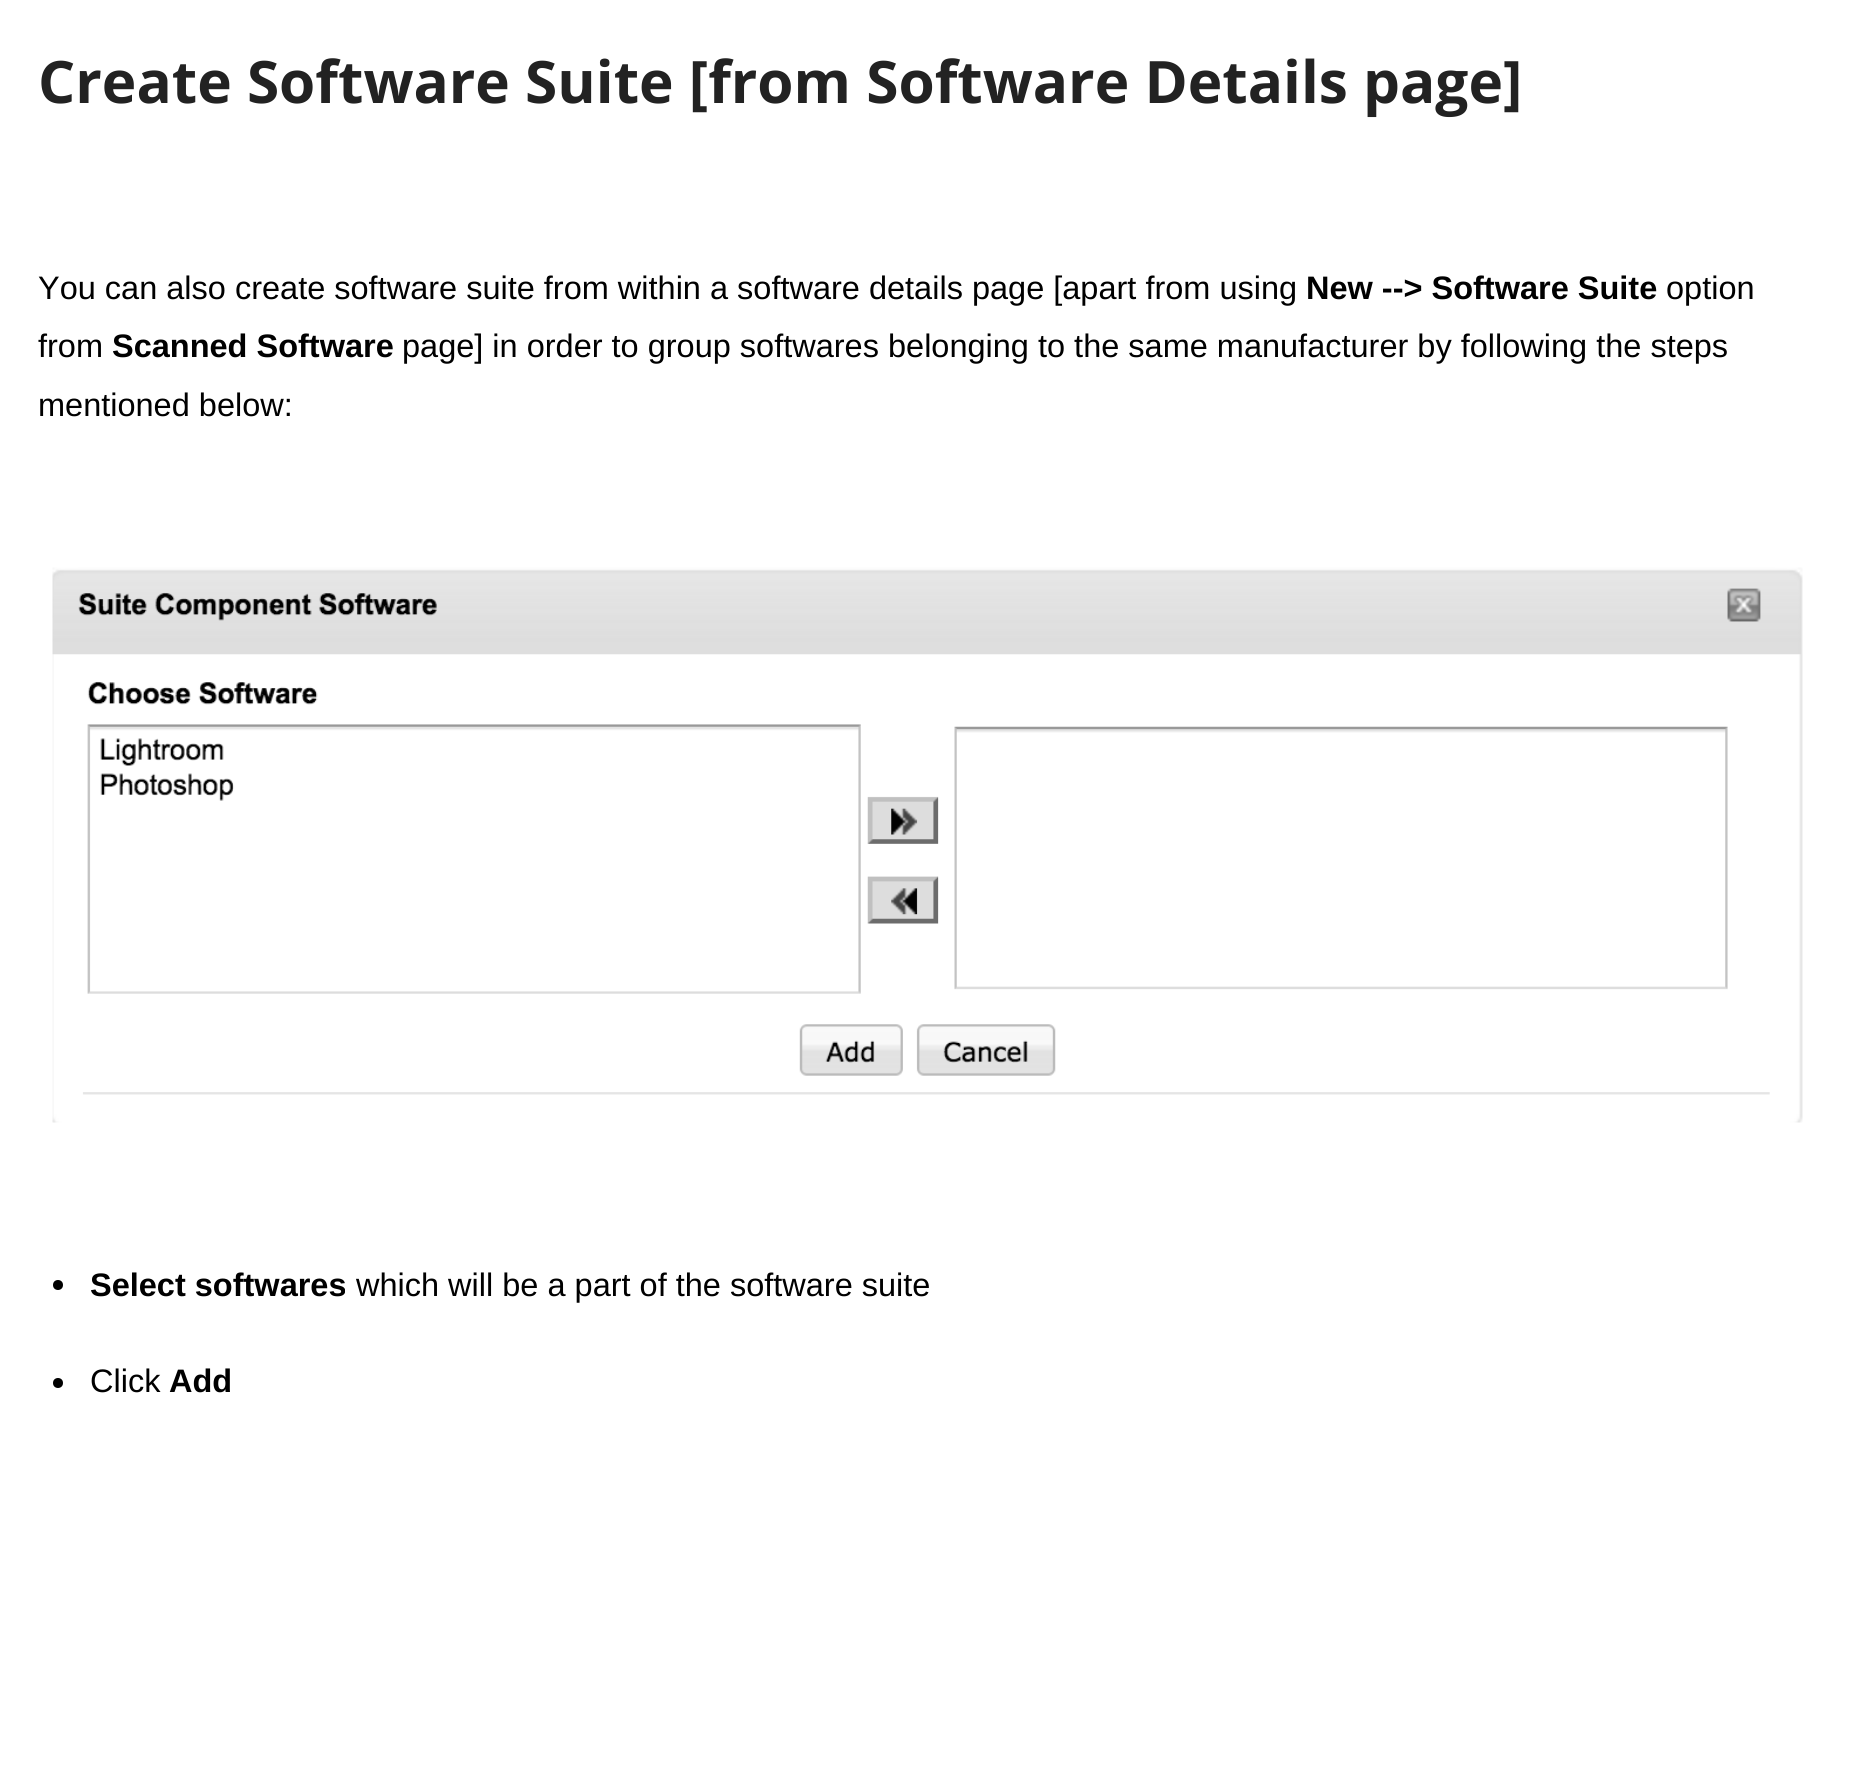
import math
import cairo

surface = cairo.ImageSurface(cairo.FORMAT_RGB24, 1855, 1777)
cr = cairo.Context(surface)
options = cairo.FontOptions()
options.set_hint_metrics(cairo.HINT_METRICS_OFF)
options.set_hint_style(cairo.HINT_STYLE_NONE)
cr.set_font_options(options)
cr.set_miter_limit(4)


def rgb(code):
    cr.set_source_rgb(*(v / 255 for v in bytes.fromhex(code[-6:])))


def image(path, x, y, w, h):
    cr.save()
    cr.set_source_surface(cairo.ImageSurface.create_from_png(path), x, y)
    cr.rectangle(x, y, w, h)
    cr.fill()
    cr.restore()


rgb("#ffffff")
cr.paint()
image("img/1.png", 52, 567, 1751, 556)
rgb("#000000")
cr.arc(58, 1285, 5, 0, 2 * math.pi)
cr.fill()
cr.arc(58, 1383, 5, 0, 2 * math.pi)
cr.fill()
cr.select_font_face("Open Sans", cairo.FONT_SLANT_NORMAL, cairo.FONT_WEIGHT_BOLD)
cr.set_font_size(58.5)
rgb("#222222")
cr.move_to(38, 103)
cr.show_text("Create Software Suite [from Software Details page]")
cr.select_font_face("Liberation Sans")
cr.set_font_size(32.5)
rgb("#000000")
cr.move_to(38, 299)
cr.show_text("You can also create software suite from within a software details page [apart from using")
cr.select_font_face("Liberation Sans", cairo.FONT_SLANT_NORMAL, cairo.FONT_WEIGHT_BOLD)
cr.move_to(1306, 299)
cr.show_text("New --> Software Suite")
cr.select_font_face("Liberation Sans")
cr.move_to(1666, 299)
cr.show_text("option")
cr.move_to(38, 357)
cr.show_text("from")
cr.select_font_face("Liberation Sans", cairo.FONT_SLANT_NORMAL, cairo.FONT_WEIGHT_BOLD)
cr.move_to(112, 357)
cr.show_text("Scanned Software")
cr.select_font_face("Liberation Sans")
cr.move_to(402, 357)
cr.show_text("page] in order to group softwares belonging to the same manufacturer by following the steps")
cr.move_to(38, 416)
cr.show_text("mentioned below:")
cr.select_font_face("Liberation Sans", cairo.FONT_SLANT_NORMAL, cairo.FONT_WEIGHT_BOLD)
cr.move_to(90, 1296)
cr.show_text("Select softwares")
cr.select_font_face("Liberation Sans")
cr.move_to(356, 1296)
cr.show_text("which will be a part of the software suite")
cr.move_to(90, 1392)
cr.show_text("Click")
cr.select_font_face("Liberation Sans", cairo.FONT_SLANT_NORMAL, cairo.FONT_WEIGHT_BOLD)
cr.move_to(169, 1392)
cr.show_text("Add")
surface.write_to_png("page.png")
